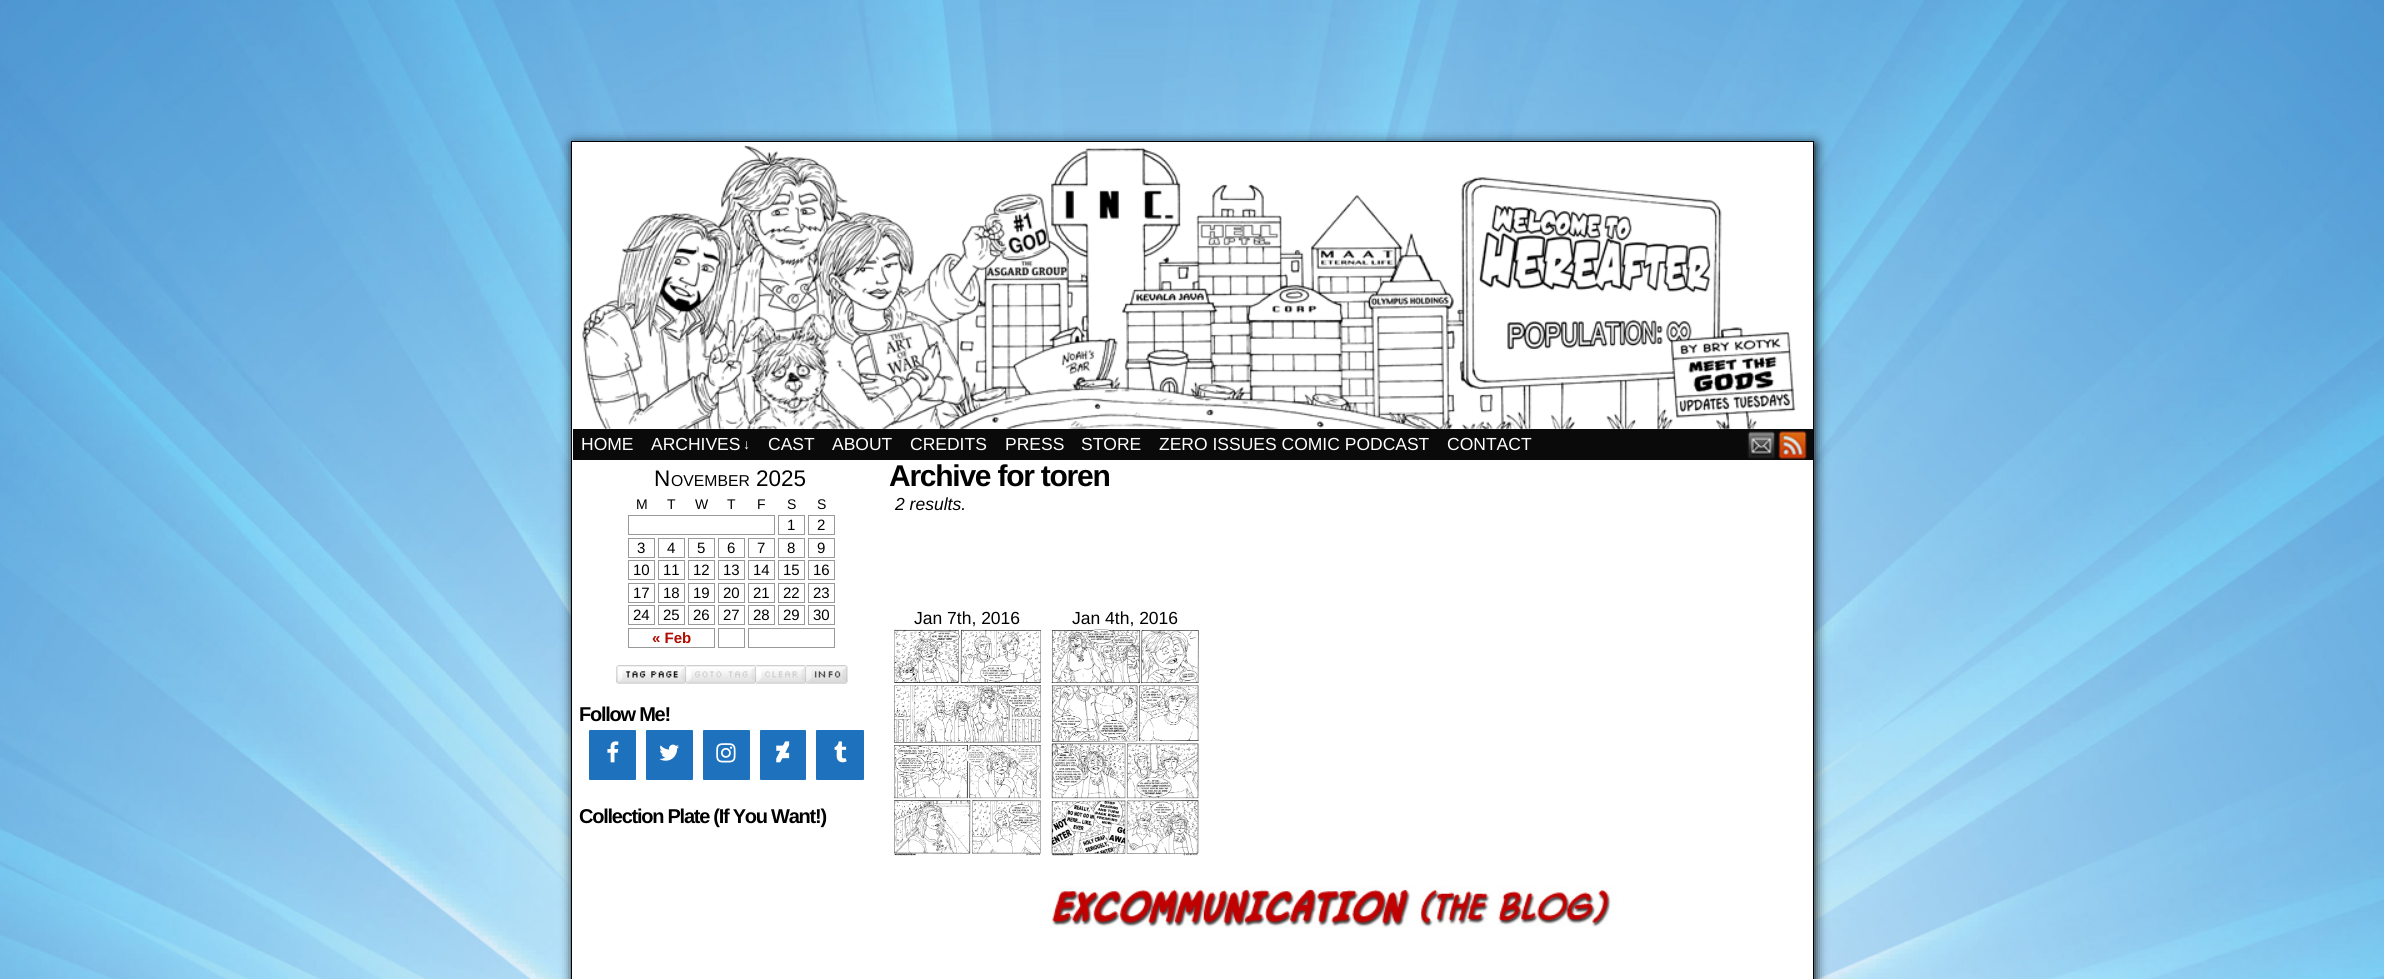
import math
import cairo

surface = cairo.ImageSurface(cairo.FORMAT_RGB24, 2384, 979)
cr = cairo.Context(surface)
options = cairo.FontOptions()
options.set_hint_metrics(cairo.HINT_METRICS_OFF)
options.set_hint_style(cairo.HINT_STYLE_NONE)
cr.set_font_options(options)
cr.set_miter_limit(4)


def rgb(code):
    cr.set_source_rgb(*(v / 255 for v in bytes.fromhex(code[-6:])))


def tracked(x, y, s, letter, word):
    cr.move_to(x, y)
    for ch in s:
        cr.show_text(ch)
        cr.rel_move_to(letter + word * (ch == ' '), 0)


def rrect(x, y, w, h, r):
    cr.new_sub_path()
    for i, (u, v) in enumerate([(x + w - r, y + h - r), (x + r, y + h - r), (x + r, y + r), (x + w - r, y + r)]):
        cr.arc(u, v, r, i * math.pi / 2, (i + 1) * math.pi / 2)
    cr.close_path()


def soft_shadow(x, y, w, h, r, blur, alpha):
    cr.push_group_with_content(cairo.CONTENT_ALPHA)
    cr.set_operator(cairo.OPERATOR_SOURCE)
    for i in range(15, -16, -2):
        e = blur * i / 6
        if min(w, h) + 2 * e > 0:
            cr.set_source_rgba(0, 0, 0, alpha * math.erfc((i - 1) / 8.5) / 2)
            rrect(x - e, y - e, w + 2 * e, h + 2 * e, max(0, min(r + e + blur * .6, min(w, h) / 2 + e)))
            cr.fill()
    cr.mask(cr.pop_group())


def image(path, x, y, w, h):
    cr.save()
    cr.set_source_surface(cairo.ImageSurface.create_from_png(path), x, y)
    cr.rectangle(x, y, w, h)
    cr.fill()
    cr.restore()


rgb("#ffffff")
cr.paint()
image("img/1.png", 0, 0, 2384, 979)
rgb("#000000")
soft_shadow(573, 144, 1242, 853, 0, 6, 1)
rgb("#ffffff")
cr.rectangle(571.5, 141.5, 1242, 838)
cr.fill_preserve()
rgb("#000000")
cr.set_line_width(1)
cr.stroke()
image("img/2.png", 582, 145, 1214, 284)
rgb("#0a0a0a")
cr.rectangle(573, 429, 1240, 31)
cr.fill()
image("img/3.png", 1747, 431, 29, 28)
image("img/4.png", 1778, 431, 29, 28)
cr.rectangle(628.5, 515.5, 146, 19)
rgb("#999999")
cr.stroke()
cr.rectangle(778.5, 515.5, 26, 19)
cr.stroke()
cr.rectangle(808.5, 515.5, 26, 19)
cr.stroke()
cr.rectangle(628.5, 538.5, 26, 19)
cr.stroke()
cr.rectangle(658.5, 538.5, 26, 19)
cr.stroke()
cr.rectangle(688.5, 538.5, 26, 19)
cr.stroke()
cr.rectangle(718.5, 538.5, 26, 19)
cr.stroke()
cr.rectangle(748.5, 538.5, 26, 19)
cr.stroke()
cr.rectangle(778.5, 538.5, 26, 19)
cr.stroke()
cr.rectangle(808.5, 538.5, 26, 19)
cr.stroke()
cr.rectangle(628.5, 560.5, 26, 19)
cr.stroke()
cr.rectangle(658.5, 560.5, 26, 19)
cr.stroke()
cr.rectangle(688.5, 560.5, 26, 19)
cr.stroke()
cr.rectangle(718.5, 560.5, 26, 19)
cr.stroke()
cr.rectangle(748.5, 560.5, 26, 19)
cr.stroke()
cr.rectangle(778.5, 560.5, 26, 19)
cr.stroke()
cr.rectangle(808.5, 560.5, 26, 19)
cr.stroke()
cr.rectangle(628.5, 583.5, 26, 19)
cr.stroke()
cr.rectangle(658.5, 583.5, 26, 19)
cr.stroke()
cr.rectangle(688.5, 583.5, 26, 19)
cr.stroke()
cr.rectangle(718.5, 583.5, 26, 19)
cr.stroke()
cr.rectangle(748.5, 583.5, 26, 19)
cr.stroke()
cr.rectangle(778.5, 583.5, 26, 19)
cr.stroke()
cr.rectangle(808.5, 583.5, 26, 19)
cr.stroke()
cr.rectangle(628.5, 605.5, 26, 19)
cr.stroke()
cr.rectangle(658.5, 605.5, 26, 19)
cr.stroke()
cr.rectangle(688.5, 605.5, 26, 19)
cr.stroke()
cr.rectangle(718.5, 605.5, 26, 19)
cr.stroke()
cr.rectangle(748.5, 605.5, 26, 19)
cr.stroke()
cr.rectangle(778.5, 605.5, 26, 19)
cr.stroke()
cr.rectangle(808.5, 605.5, 26, 19)
cr.stroke()
cr.rectangle(628.5, 628.5, 86, 19)
cr.stroke()
cr.rectangle(718.5, 628.5, 26, 19)
cr.stroke()
cr.rectangle(748.5, 628.5, 86, 19)
cr.stroke()
image("img/5.png", 616, 665, 71, 19)
image("img/6.png", 686, 665, 71, 19)
image("img/7.png", 756, 665, 51, 19)
image("img/8.png", 806, 665, 42, 19)
rgb("#1e72bd")
rrect(589, 730, 47, 50, 1)
cr.fill()
image("img/9.png", 607, 741, 12, 22)
rrect(646, 730, 47, 50, 1)
cr.fill()
image("img/10.png", 659, 744, 20, 17)
rrect(703, 730, 47, 50, 1)
cr.fill()
image("img/11.png", 716, 743, 20, 20)
rrect(760, 730, 46, 50, 1)
cr.fill()
image("img/12.png", 776, 741, 14, 22)
rrect(816, 730, 48, 50, 1)
cr.fill()
image("img/13.png", 834, 741, 13, 22)
image("img/14.png", 894, 629, 147, 227)
image("img/15.png", 1051, 629, 148, 227)
image("img/16.png", 1048, 886, 569, 42)
cr.select_font_face("Liberation Sans")
cr.set_font_size(17.5)
rgb("#ffffff")
cr.move_to(581, 450)
cr.show_text("HOME")
cr.move_to(651, 450)
cr.show_text("ARCHIVES")
cr.set_font_size(14)
cr.move_to(743, 449)
cr.show_text("↓")
cr.set_font_size(17.5)
for x, y, s in [
    (768, 450, "CAST"),
    (832, 450, "ABOUT"),
    (910, 450, "CREDITS"),
    (1005, 450, "PRESS"),
    (1081, 450, "STORE"),
    (1159, 450, "ZERO ISSUES COMIC PODCAST"),
    (1447, 450, "CONTACT"),
]:
    cr.move_to(x, y)
    cr.show_text(s)
cr.set_font_size(22.5)
rgb("#000000")
cr.move_to(654, 486)
cr.show_text("N")
cr.set_font_size(15.75)
cr.move_to(671, 486)
cr.show_text("OVEMBER")
cr.set_font_size(22.5)
cr.move_to(756, 486)
cr.show_text("2025")
cr.set_font_size(14)
for x, y, s in [
    (636, 509, "M"),
    (667, 509, "T"),
    (695, 509, "W"),
    (727, 509, "T"),
    (757, 509, "F"),
    (787, 509, "S"),
    (817, 509, "S"),
]:
    cr.move_to(x, y)
    cr.show_text(s)
cr.set_font_size(15)
for x, y, s in [
    (787, 530, "1"),
    (817, 530, "2"),
    (637, 553, "3"),
    (667, 553, "4"),
    (697, 553, "5"),
    (727, 553, "6"),
    (757, 553, "7"),
    (787, 553, "8"),
    (817, 553, "9"),
    (633, 575, "10"),
    (663, 575, "11"),
    (693, 575, "12"),
    (723, 575, "13"),
    (753, 575, "14"),
    (783, 575, "15"),
    (813, 575, "16"),
    (633, 598, "17"),
    (663, 598, "18"),
    (693, 598, "19"),
    (723, 598, "20"),
    (753, 598, "21"),
    (783, 598, "22"),
    (813, 598, "23"),
    (633, 620, "24"),
    (663, 620, "25"),
    (693, 620, "26"),
    (723, 620, "27"),
    (753, 620, "28"),
    (783, 620, "29"),
    (813, 620, "30"),
]:
    cr.move_to(x, y)
    cr.show_text(s)
cr.select_font_face("Liberation Sans", cairo.FONT_SLANT_NORMAL, cairo.FONT_WEIGHT_BOLD)
rgb("#b00b00")
cr.move_to(652, 643)
cr.show_text("« Feb")
cr.set_font_size(20)
rgb("#000000")
tracked(579, 721, "Follow Me!", -1.25, 0)
tracked(579, 823, "Collection Plate (If You Want!)", -1.25, 0)
cr.set_font_size(30)
tracked(889, 486, "Archive for toren", -1.25, 0)
cr.select_font_face("Liberation Sans", cairo.FONT_SLANT_ITALIC)
cr.set_font_size(17.5)
cr.move_to(895, 510)
cr.show_text("2 results.")
cr.select_font_face("Liberation Sans")
cr.move_to(914, 624)
cr.show_text("Jan 7th, 2016")
cr.move_to(1072, 624)
cr.show_text("Jan 4th, 2016")
surface.write_to_png("page.png")
